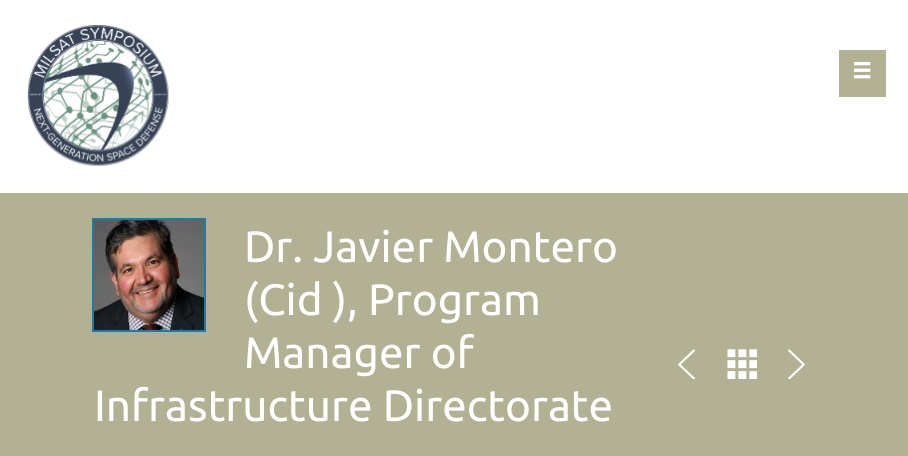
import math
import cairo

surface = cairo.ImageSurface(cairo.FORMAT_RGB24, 908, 456)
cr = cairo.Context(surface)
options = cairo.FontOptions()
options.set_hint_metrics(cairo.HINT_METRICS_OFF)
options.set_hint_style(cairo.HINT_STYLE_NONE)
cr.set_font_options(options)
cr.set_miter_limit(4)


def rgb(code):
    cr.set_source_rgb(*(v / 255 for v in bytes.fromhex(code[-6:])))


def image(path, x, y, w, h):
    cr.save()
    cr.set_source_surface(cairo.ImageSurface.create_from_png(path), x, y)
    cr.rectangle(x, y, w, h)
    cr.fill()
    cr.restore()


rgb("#ffffff")
cr.paint()
image("img/1.png", 27, 25, 142, 142)
rgb("#b2b193")
cr.rectangle(839, 50, 47, 47)
cr.fill()
image("img/2.png", 854, 62, 17, 17)
cr.rectangle(0, 193, 908, 263)
cr.fill()
cr.rectangle(93, 219, 112, 112)
rgb("#157eab")
cr.stroke()
image("img/3.png", 94, 220, 110, 110)
image("img/4.png", 678, 349, 17, 30)
image("img/5.png", 727, 349, 30, 30)
image("img/6.png", 788, 349, 17, 30)
cr.select_font_face("Ubuntu")
cr.set_font_size(44)
rgb("#ffffff")
for x, y, s in [
    (244, 262, "Dr. Javier Montero"),
    (244, 315, "(Cid ), Program"),
    (244, 368, "Manager of"),
    (94, 421, "Infrastructure Directorate"),
]:
    cr.move_to(x, y)
    cr.show_text(s)
surface.write_to_png("page.png")
